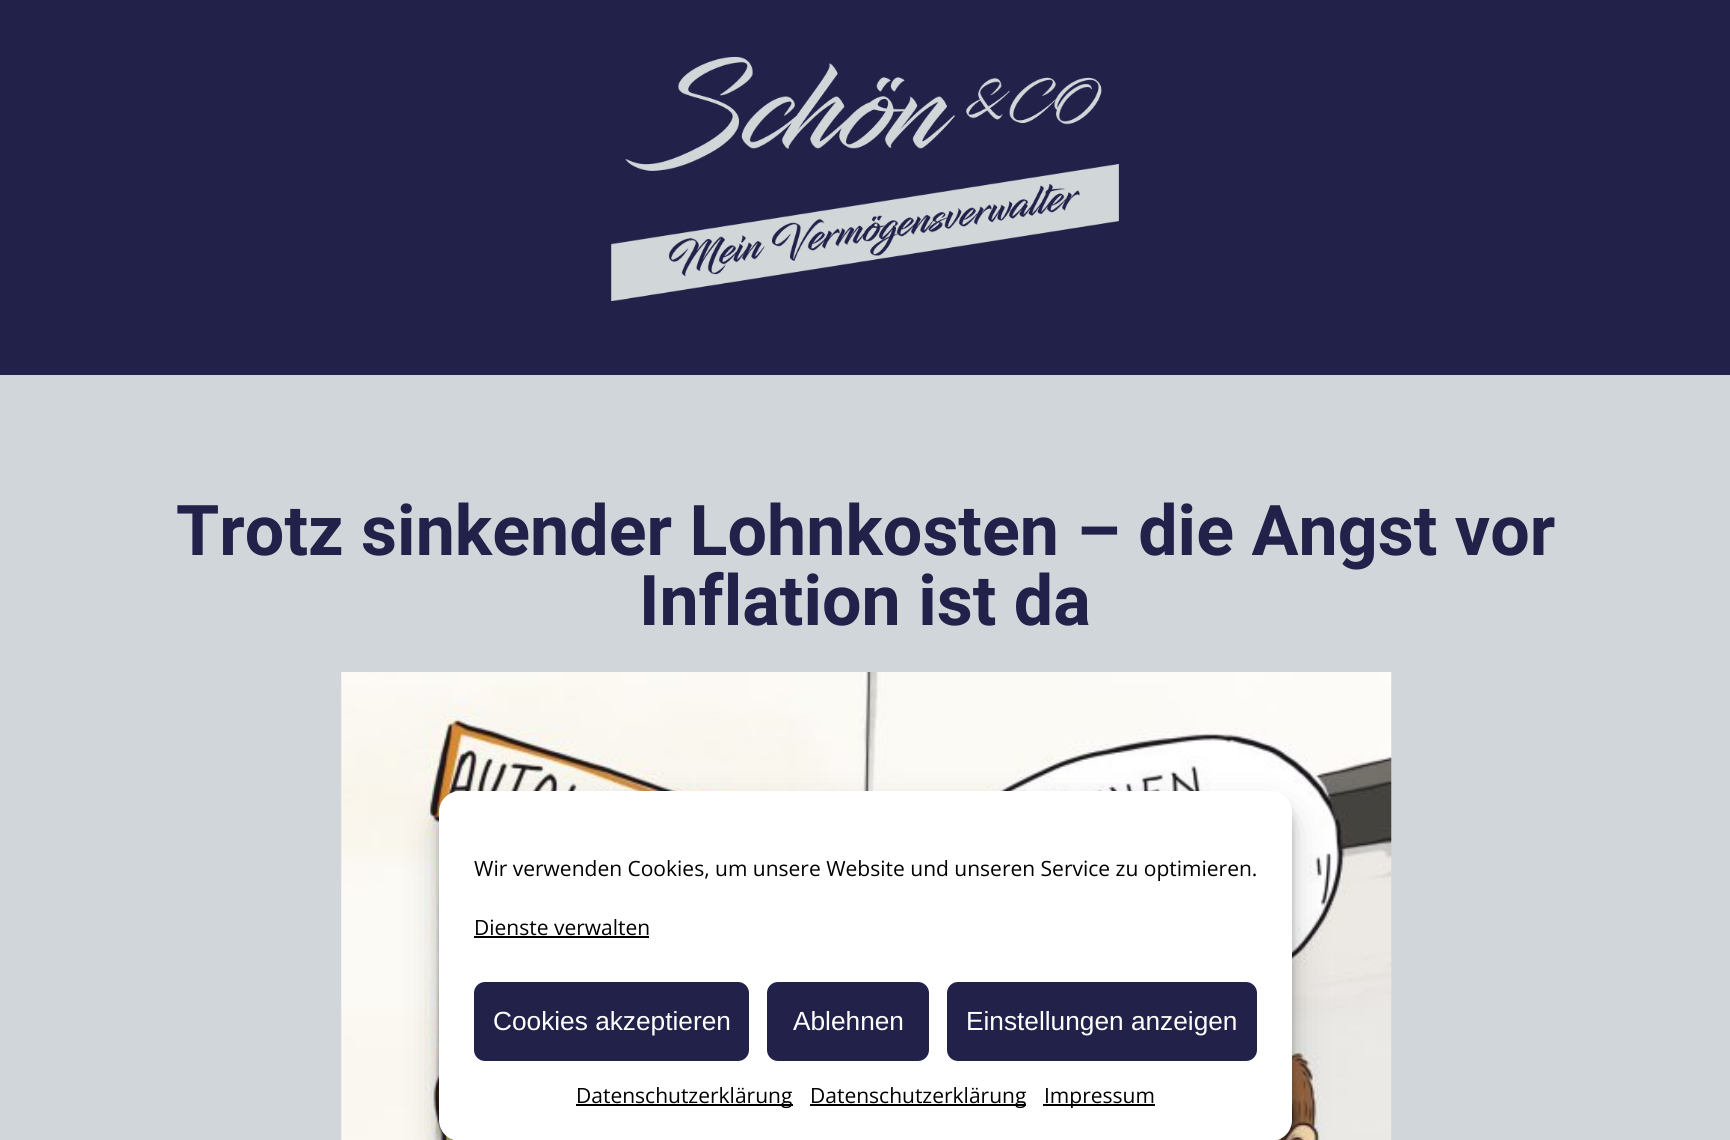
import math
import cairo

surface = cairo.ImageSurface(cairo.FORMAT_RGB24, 1730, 1140)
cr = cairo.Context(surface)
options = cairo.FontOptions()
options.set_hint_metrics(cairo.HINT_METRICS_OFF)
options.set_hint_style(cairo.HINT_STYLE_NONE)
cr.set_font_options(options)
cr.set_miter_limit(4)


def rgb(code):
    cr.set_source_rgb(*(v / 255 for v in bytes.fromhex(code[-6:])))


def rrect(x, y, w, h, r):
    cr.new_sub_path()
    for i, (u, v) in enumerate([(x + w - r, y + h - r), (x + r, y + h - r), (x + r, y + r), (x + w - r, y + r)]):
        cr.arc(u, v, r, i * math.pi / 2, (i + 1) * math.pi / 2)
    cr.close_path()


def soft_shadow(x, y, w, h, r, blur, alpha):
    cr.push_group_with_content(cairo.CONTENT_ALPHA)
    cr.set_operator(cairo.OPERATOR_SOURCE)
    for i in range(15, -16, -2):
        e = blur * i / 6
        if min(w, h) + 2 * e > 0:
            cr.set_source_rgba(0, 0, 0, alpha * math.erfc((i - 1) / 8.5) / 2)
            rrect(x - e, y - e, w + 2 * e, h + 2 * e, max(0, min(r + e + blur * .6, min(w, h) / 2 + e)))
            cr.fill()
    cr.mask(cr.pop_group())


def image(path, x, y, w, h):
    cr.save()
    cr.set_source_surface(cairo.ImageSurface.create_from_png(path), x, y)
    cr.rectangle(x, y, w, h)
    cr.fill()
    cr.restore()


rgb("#21214a")
cr.paint()
image("img/1.png", 611, 56, 508, 246)
rgb("#d1d6da")
cr.rectangle(0, 375, 1730, 765)
cr.fill()
image("img/2.png", 341, 672, 1051, 468)
rgb("#000000")
soft_shadow(439, 802, 853, 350, 21, 5, 0.23)
soft_shadow(439, 809, 853, 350, 21, 17.5, 0.19)
rgb("#ffffff")
rrect(439, 791, 853, 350, 21)
cr.fill()
rgb("#000000")
cr.rectangle(474, 936, 175, 2)
cr.fill()
rgb("#21214a")
rrect(475, 983, 273, 77, 10)
cr.fill_preserve()
cr.stroke()
rrect(768, 983, 160, 77, 10)
cr.fill_preserve()
cr.stroke()
rrect(948, 983, 308, 77, 10)
cr.fill_preserve()
cr.stroke()
for x, y, w, h, color in [
    (576, 1104, 217, 2, "#000000"),
    (810, 1104, 216, 2, "#000000"),
    (1043, 1104, 112, 2, "#000000"),
]:
    rgb(color)
    cr.rectangle(x, y, w, h)
    cr.fill()
cr.select_font_face("Roboto", cairo.FONT_SLANT_NORMAL, cairo.FONT_WEIGHT_BOLD)
cr.set_font_size(70)
rgb("#21214a")
cr.move_to(176, 555)
cr.show_text("Trotz sinkender Lohnkosten – die Angst vor")
cr.move_to(639, 625)
cr.show_text("Inflation ist da")
cr.select_font_face("Open Sans")
cr.set_font_size(21)
rgb("#000000")
cr.move_to(474, 876)
cr.show_text("Wir verwenden Cookies, um unsere Website und unseren Service zu optimieren.")
cr.move_to(474, 935)
cr.show_text("Dienste verwalten")
cr.select_font_face("Liberation Sans")
cr.set_font_size(26.25)
rgb("#ffffff")
for x, y, s in [
    (493, 1030, "Cookies akzeptieren"),
    (793, 1030, "Ablehnen"),
    (966, 1030, "Einstellungen anzeigen"),
]:
    cr.move_to(x, y)
    cr.show_text(s)
cr.select_font_face("Open Sans")
cr.set_font_size(21)
rgb("#000000")
for x, y, s in [
    (576, 1103, "Datenschutzerklärung"),
    (810, 1103, "Datenschutzerklärung"),
    (1044, 1103, "Impressum"),
]:
    cr.move_to(x, y)
    cr.show_text(s)
surface.write_to_png("page.png")
